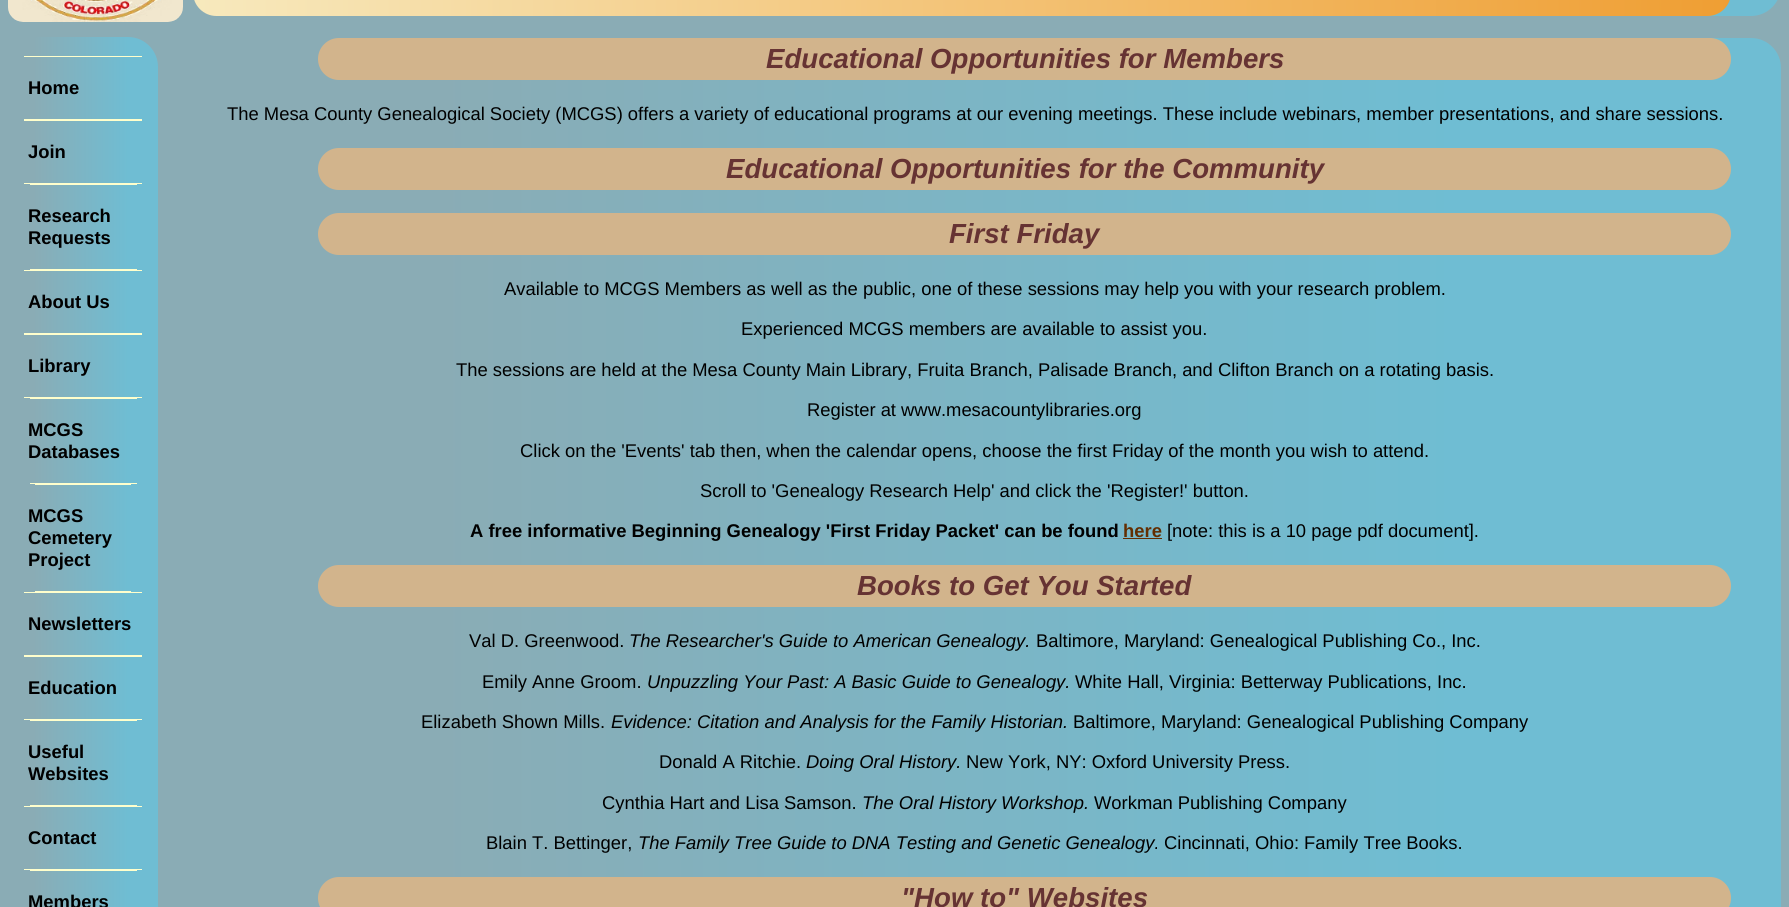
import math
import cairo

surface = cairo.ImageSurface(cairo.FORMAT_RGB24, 1789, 907)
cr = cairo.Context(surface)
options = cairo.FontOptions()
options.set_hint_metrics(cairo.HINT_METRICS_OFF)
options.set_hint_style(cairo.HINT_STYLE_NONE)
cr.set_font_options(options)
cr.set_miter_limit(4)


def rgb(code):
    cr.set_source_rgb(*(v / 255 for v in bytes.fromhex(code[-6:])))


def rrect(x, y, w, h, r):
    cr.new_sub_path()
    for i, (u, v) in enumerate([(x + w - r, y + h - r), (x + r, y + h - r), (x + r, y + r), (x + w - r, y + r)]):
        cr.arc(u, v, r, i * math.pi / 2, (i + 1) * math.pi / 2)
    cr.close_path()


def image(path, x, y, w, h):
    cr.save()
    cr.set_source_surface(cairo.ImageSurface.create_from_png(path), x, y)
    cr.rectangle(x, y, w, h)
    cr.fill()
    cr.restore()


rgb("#8aacb5")
cr.paint()
gradient = cairo.LinearGradient(8, -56, 1781, -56)
gradient.add_color_stop_rgba(0.17, 0.541, 0.675, 0.71, 1)
gradient.add_color_stop_rgba(0.8, 0.435, 0.741, 0.827, 1)
cr.set_source(gradient)
rrect(8, -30, 1773, 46, 30)
cr.fill()
image("img/1.png", 8, 0, 175, 22)
gradient = cairo.LinearGradient(193, -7.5, 1731, -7.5)
gradient.add_color_stop_rgba(0, 0.969, 0.914, 0.741, 1)
gradient.add_color_stop_rgba(1, 0.937, 0.62, 0.2, 1)
cr.set_source(gradient)
rrect(193, -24, 1538, 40, 23.5)
cr.fill()
gradient = cairo.LinearGradient(8, 506, 158, 506)
gradient.add_color_stop_rgba(0.17, 0.541, 0.675, 0.71, 1)
gradient.add_color_stop_rgba(0.8, 0.435, 0.741, 0.827, 1)
cr.set_source(gradient)
rrect(8, 37, 150, 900, 30)
cr.fill()
for x, y, w, h, color in [
    (24, 56, 118, 1, "#ffffcc"),
    (24, 119, 118, 2, "#ffffcc"),
    (24, 183, 118, 1, "#ffffcc"),
    (30, 184, 107, 1, "#ffffcc"),
    (30, 269, 107, 1, "#ffffcc"),
    (24, 270, 118, 1, "#ffffcc"),
    (24, 333, 118, 2, "#ffffcc"),
    (24, 397, 118, 1, "#ffffcc"),
    (30, 398, 107, 1, "#ffffcc"),
    (30, 483, 107, 1, "#ffffcc"),
    (35, 484, 96, 1, "#ffffcc"),
    (35, 591, 96, 1, "#ffffcc"),
    (24, 592, 118, 1, "#ffffcc"),
    (24, 655, 118, 2, "#ffffcc"),
    (24, 719, 118, 1, "#ffffcc"),
    (30, 720, 107, 1, "#ffffcc"),
    (30, 805, 107, 1, "#ffffcc"),
    (24, 806, 118, 1, "#ffffcc"),
    (24, 869, 118, 1, "#ffffcc"),
    (30, 870, 107, 1, "#ffffcc"),
]:
    rgb(color)
    cr.rectangle(x, y, w, h)
    cr.fill()
gradient = cairo.LinearGradient(163, 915, 1781, 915)
gradient.add_color_stop_rgba(0.17, 0.541, 0.675, 0.71, 1)
gradient.add_color_stop_rgba(0.8, 0.435, 0.741, 0.827, 1)
cr.set_source(gradient)
rrect(163, 38, 1618, 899, 30)
cr.fill()
rgb("#d2b48c")
rrect(318, 38, 1413, 42, 21)
cr.fill()
rrect(318, 148, 1413, 42, 21)
cr.fill()
rrect(318, 213, 1413, 42, 21)
cr.fill()
rgb("#632e01")
cr.rectangle(1123, 538, 39, 1)
cr.fill()
rgb("#d2b48c")
rrect(318, 565, 1413, 42, 21)
cr.fill()
rrect(318, 877, 1413, 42, 21)
cr.fill()
cr.select_font_face("Liberation Sans", cairo.FONT_SLANT_NORMAL, cairo.FONT_WEIGHT_BOLD)
cr.set_font_size(18.4)
rgb("#000000")
for x, y, s in [
    (28, 94, "Home"),
    (28, 158, "Join"),
    (28, 222, "Research"),
    (28, 244, "Requests"),
    (28, 308, "About Us"),
    (28, 372, "Library"),
    (28, 436, "MCGS"),
    (28, 458, "Databases"),
    (28, 522, "MCGS"),
    (28, 544, "Cemetery"),
    (28, 566, "Project"),
    (28, 630, "Newsletters"),
    (28, 694, "Education"),
    (28, 758, "Useful"),
    (28, 780, "Websites"),
    (28, 844, "Contact"),
    (28, 908, "Members"),
]:
    cr.move_to(x, y)
    cr.show_text(s)
cr.select_font_face("Liberation Sans", cairo.FONT_SLANT_ITALIC, cairo.FONT_WEIGHT_BOLD)
cr.set_font_size(27.6)
rgb("#663333")
cr.move_to(766, 68)
cr.show_text("Educational Opportunities for Members")
cr.select_font_face("Liberation Sans")
cr.set_font_size(18.4)
rgb("#000000")
cr.move_to(227, 120)
cr.show_text("The Mesa County Genealogical Society (MCGS) offers a variety of educational programs at our evening meetings. These include webinars, member presentations, and share sessions.")
cr.select_font_face("Liberation Sans", cairo.FONT_SLANT_ITALIC, cairo.FONT_WEIGHT_BOLD)
cr.set_font_size(27.6)
rgb("#663333")
cr.move_to(726, 178)
cr.show_text("Educational Opportunities for the Community")
cr.move_to(949, 243)
cr.show_text("First Friday")
cr.select_font_face("Liberation Sans")
cr.set_font_size(18.4)
rgb("#000000")
for x, y, s in [
    (504, 295, "Available to MCGS Members as well as the public, one of these sessions may help you with your research problem."),
    (741, 335, "Experienced MCGS members are available to assist you."),
    (456, 376, "The sessions are held at the Mesa County Main Library, Fruita Branch, Palisade Branch, and Clifton Branch on a rotating basis."),
    (807, 416, "Register at www.mesacountylibraries.org"),
    (520, 457, "Click on the 'Events' tab then, when the calendar opens, choose the first Friday of the month you wish to attend."),
    (700, 497, "Scroll to 'Genealogy Research Help' and click the 'Register!' button."),
]:
    cr.move_to(x, y)
    cr.show_text(s)
cr.select_font_face("Liberation Sans", cairo.FONT_SLANT_NORMAL, cairo.FONT_WEIGHT_BOLD)
cr.move_to(470, 537)
cr.show_text("A free informative Beginning Genealogy 'First Friday Packet' can be found")
rgb("#632e01")
cr.move_to(1123, 537)
cr.show_text("here")
cr.select_font_face("Liberation Sans")
rgb("#000000")
cr.move_to(1167, 537)
cr.show_text("[note: this is a 10 page pdf document].")
cr.select_font_face("Liberation Sans", cairo.FONT_SLANT_ITALIC, cairo.FONT_WEIGHT_BOLD)
cr.set_font_size(27.6)
rgb("#663333")
cr.move_to(857, 595)
cr.show_text("Books to Get You Started")
cr.select_font_face("Liberation Sans")
cr.set_font_size(18.4)
rgb("#000000")
cr.move_to(469, 647)
cr.show_text("Val D. Greenwood.")
cr.select_font_face("Liberation Sans", cairo.FONT_SLANT_ITALIC)
cr.move_to(629, 647)
cr.show_text("The Researcher's Guide to American Genealogy.")
cr.select_font_face("Liberation Sans")
cr.move_to(1036, 647)
cr.show_text("Baltimore, Maryland: Genealogical Publishing Co., Inc.")
cr.move_to(482, 688)
cr.show_text("Emily Anne Groom.")
cr.select_font_face("Liberation Sans", cairo.FONT_SLANT_ITALIC)
cr.move_to(647, 688)
cr.show_text("Unpuzzling Your Past: A Basic Guide to Genealogy.")
cr.select_font_face("Liberation Sans")
cr.move_to(1075, 688)
cr.show_text("White Hall, Virginia: Betterway Publications, Inc.")
cr.move_to(421, 728)
cr.show_text("Elizabeth Shown Mills.")
cr.select_font_face("Liberation Sans", cairo.FONT_SLANT_ITALIC)
cr.move_to(611, 728)
cr.show_text("Evidence: Citation and Analysis for the Family Historian.")
cr.select_font_face("Liberation Sans")
cr.move_to(1073, 728)
cr.show_text("Baltimore, Maryland: Genealogical Publishing Company")
cr.move_to(659, 768)
cr.show_text("Donald A Ritchie.")
cr.select_font_face("Liberation Sans", cairo.FONT_SLANT_ITALIC)
cr.move_to(806, 768)
cr.show_text("Doing Oral History.")
cr.select_font_face("Liberation Sans")
cr.move_to(966, 768)
cr.show_text("New York, NY: Oxford University Press.")
cr.move_to(602, 809)
cr.show_text("Cynthia Hart and Lisa Samson.")
cr.select_font_face("Liberation Sans", cairo.FONT_SLANT_ITALIC)
cr.move_to(862, 809)
cr.show_text("The Oral History Workshop.")
cr.select_font_face("Liberation Sans")
cr.move_to(1094, 809)
cr.show_text("Workman Publishing Company")
cr.move_to(486, 849)
cr.show_text("Blain T. Bettinger,")
cr.select_font_face("Liberation Sans", cairo.FONT_SLANT_ITALIC)
cr.move_to(638, 849)
cr.show_text("The Family Tree Guide to DNA Testing and Genetic Genealogy.")
cr.select_font_face("Liberation Sans")
cr.move_to(1164, 849)
cr.show_text("Cincinnati, Ohio: Family Tree Books.")
cr.select_font_face("Liberation Sans", cairo.FONT_SLANT_ITALIC, cairo.FONT_WEIGHT_BOLD)
cr.set_font_size(27.6)
rgb("#663333")
cr.move_to(901, 907)
cr.show_text("\"How to\" Websites")
surface.write_to_png("page.png")
